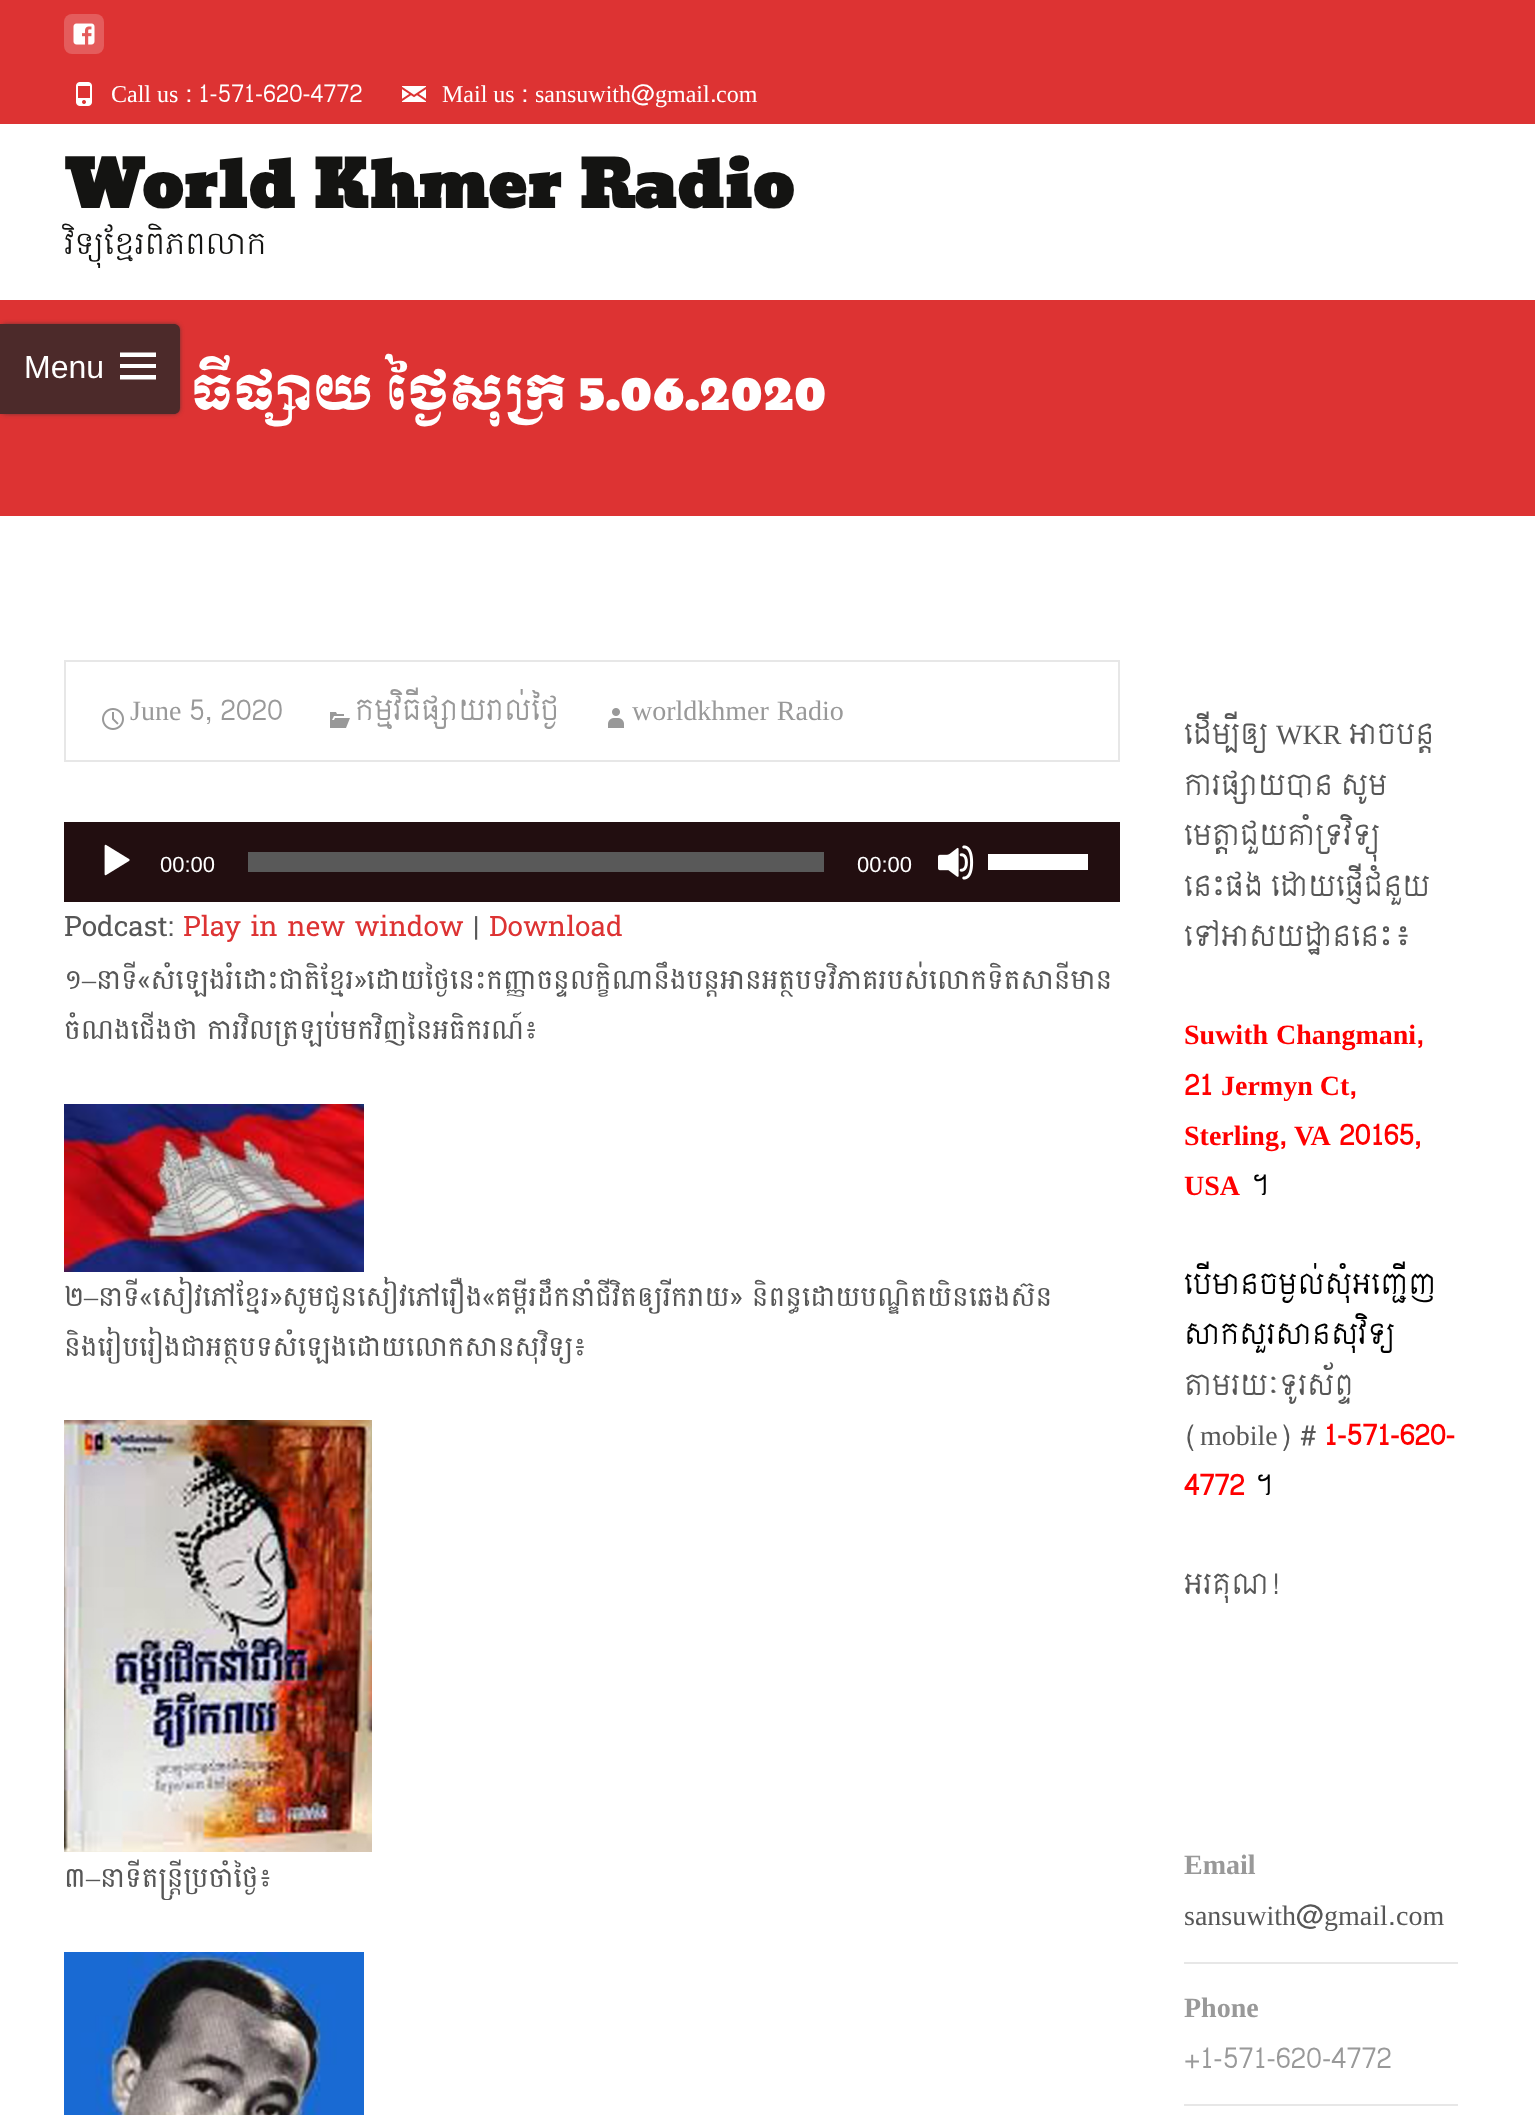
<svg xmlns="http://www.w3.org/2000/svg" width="1535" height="2115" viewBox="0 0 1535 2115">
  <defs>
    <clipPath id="clip1"><path d="M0 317H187V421H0ZM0 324H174C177.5 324 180 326.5 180 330V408C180 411.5 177.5 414 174 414H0Z" clip-rule="evenodd"/></clipPath>
  </defs>
  <rect width="100%" height="100%" fill="rgb(255,255,255)"/>
  <rect x="0" y="0" width="1535" height="124" fill="rgb(221,51,51)"/>
  <rect x="64" y="14" width="40" height="40" rx="8" fill="rgb(228,92,92)"/>
  <image x="73" y="23" width="22" height="22" href="pic1.png"/>
  <image x="76" y="82" width="16" height="24" href="pic2.png"/>
  <text x="111" y="102" font-family="Liberation Serif" font-size="24" fill="rgb(255,255,255)">Call us</text>
  <text x="185" y="102" font-family="Chenla" font-size="24" fill="rgb(255,255,255)">: 1-571-620-4772</text>
  <image x="402" y="86" width="24" height="16" href="pic3.png"/>
  <text x="442" y="102" font-family="Liberation Serif" font-size="24" fill="rgb(255,255,255)">Mail us</text>
  <text x="521" y="102" font-family="Chenla" font-size="24" fill="rgb(255,255,255)">:</text>
  <text x="535" y="102" font-family="Liberation Serif" font-size="24" fill="rgb(255,255,255)">sansuwith</text>
  <text x="631" y="102" font-family="Chenla" font-size="24" fill="rgb(255,255,255)">@</text>
  <text x="655" y="102" font-family="Liberation Serif" font-size="24" fill="rgb(255,255,255)">gmail</text>
  <text x="710" y="102" font-family="Chenla" font-size="24" fill="rgb(255,255,255)">.</text>
  <text x="716" y="102" font-family="Liberation Serif" font-size="24" fill="rgb(255,255,255)">com</text>
  <text x="64" y="208" font-family="Moul" font-size="64" font-weight="bold" fill="rgb(20,20,18)">World Khmer Radio</text>
  <text x="64" y="254" font-family="Hanuman" font-size="32" font-weight="300" fill="rgb(20,20,18)">វិទ្យុខ្មែរពិភពលោក</text>
  <rect x="0" y="300" width="1535" height="216" fill="rgb(221,51,51)"/>
  <g clip-path="url(#clip1)">
    <rect x="0" y="324" width="180" height="90" rx="6" fill="rgba(50,50,50,0.64)" filter="blur(2px)"/>
  </g>
  <text x="191" y="410" font-family="Moul" font-size="48" fill="rgb(255,255,255)">ធីផ្សាយ ថ្ងៃសុក្រ 5.06.2020</text>
  <path d="M0 324H174C177.5 324 180 326.5 180 330V408C180 411.5 177.5 414 174 414H0Z" fill="rgba(40,40,40,0.8)"/>
  <text x="24" y="378" font-family="Liberation Sans" font-size="32" fill="rgb(255,255,255)">Menu</text>
  <path d="M120 379.5V375H156V379.5ZM120 368V364H156V368ZM120 357V352.5H156V357Z" fill="rgb(255,255,255)"/>
  <rect x="65" y="661" width="1054" height="100" fill="none" stroke="rgb(231,231,231)" stroke-width="2"/>
  <image x="102" y="708" width="22" height="22" href="pic4.png"/>
  <text x="130" y="720" font-family="Liberation Serif" font-size="28" fill="rgb(153,153,153)">June</text>
  <text x="189" y="720" font-family="Chenla" font-size="28" fill="rgb(153,153,153)">5, 2020</text>
  <image x="330" y="712" width="20" height="16" href="pic5.png"/>
  <text x="355" y="720" font-family="Chenla" font-size="28" fill="rgb(153,153,153)">កម្មវិធីផ្សាយរាល់ថ្ងៃ</text>
  <image x="608" y="708" width="16" height="20" href="pic6.png"/>
  <text x="632" y="720" word-spacing="1" font-family="Liberation Serif" font-size="28" fill="rgb(153,153,153)">worldkhmer Radio</text>
  <rect x="64" y="822" width="1056" height="80" fill="rgb(34,14,16)"/>
  <image x="104" y="844" width="26" height="32" href="pic7.png"/>
  <text x="160" y="872" font-family="Liberation Sans" font-size="22" fill="rgb(255,255,255)">00:00</text>
  <rect x="248" y="852" width="576" height="20" fill="rgb(89,89,89)"/>
  <text x="857" y="872" font-family="Liberation Sans" font-size="22" fill="rgb(255,255,255)">00:00</text>
  <image x="938" y="845" width="36" height="35" href="pic8.png"/>
  <rect x="988" y="854" width="100" height="16" fill="rgb(255,255,255)"/>
  <text x="64" y="936" font-family="Battambang" font-size="28" fill="rgb(87,87,87)">Podcast:</text>
  <text x="183" y="936" font-family="Battambang" font-size="28" fill="rgb(221,51,51)">Play in new window</text>
  <text x="473" y="936" font-family="Battambang" font-size="28" fill="rgb(87,87,87)">|</text>
  <text x="489" y="936" font-family="Battambang" font-size="28" fill="rgb(221,51,51)">Download</text>
  <text x="64" y="989" font-family="Battambang" font-size="28" fill="rgb(87,87,87)">១</text>
  <text x="82" y="989" font-family="Liberation Serif" font-size="28" fill="rgb(87,87,87)">–</text>
  <g font-family="Battambang" font-size="28" fill="rgb(87,87,87)">
    <text x="96" y="989">នាទី«សំឡេងរំដោះជាតិខ្មែរ»ដោយថ្ងៃនេះកញ្ញាចន្ទលក្ខិណានឹងបន្តអានអត្ថបទវិភាគរបស់លោកទិតសានីមាន</text>
    <text x="64" y="1039">ចំណងជើងថា ការវិលត្រឡប់មកវិញនៃអធិករណ៍៖</text>
  </g>
  <image x="64" y="1104" width="300" height="168" href="pic9.png"/>
  <text x="64" y="1306" font-family="Battambang" font-size="28" fill="rgb(87,87,87)">២</text>
  <text x="84" y="1306" font-family="Liberation Serif" font-size="28" fill="rgb(87,87,87)">–</text>
  <g font-family="Battambang" font-size="28" fill="rgb(87,87,87)">
    <text x="98" y="1306">នាទី«សៀវភៅខ្មែរ»សូមជូនសៀវភៅរឿង«គម្ពីរដឹកនាំជីវិតឲ្យរីករាយ» និពន្ធដោយបណ្ឌិតយិនឆេងស៊ន</text>
    <text x="64" y="1356">និងរៀបរៀងជាអត្ថបទសំឡេងដោយលោកសានសុវិទ្យ៖</text>
  </g>
  <image x="64" y="1420" width="308" height="432" href="pic10.png"/>
  <text x="64" y="1887" font-family="Battambang" font-size="28" fill="rgb(87,87,87)">៣</text>
  <text x="86" y="1887" font-family="Liberation Serif" font-size="28" fill="rgb(87,87,87)">–</text>
  <text x="100" y="1887" font-family="Battambang" font-size="28" fill="rgb(87,87,87)">នាទីតន្ត្រីប្រចាំថ្ងៃ៖</text>
  <image x="64" y="1952" width="300" height="163" href="pic11.png"/>
  <text x="1184" y="744" font-family="Chenla" font-size="28" fill="rgb(87,87,87)">ដើម្បីឲ្យ</text>
  <text x="1276" y="744" font-family="Liberation Serif" font-size="28" fill="rgb(87,87,87)">WKR</text>
  <g font-family="Chenla" font-size="28" fill="rgb(87,87,87)">
    <text x="1349" y="744">អាចបន្ត</text>
    <text>
      <tspan x="1184" y="795">ការផ្សាយបាន សូម</tspan>
      <tspan x="1184" y="845">មេត្តាជួយគាំទ្រវិទ្យុ</tspan>
      <tspan x="1184" y="896">នេះផង ដោយផ្ញើជំនួយ</tspan>
      <tspan x="1184" y="946">ទៅអាសយដ្ឋាននេះ៖</tspan>
    </text>
  </g>
  <text x="1184" y="1044" word-spacing="1" font-family="Liberation Serif" font-size="28" font-weight="bold" fill="rgb(255,0,0)">Suwith Changmani</text>
  <g font-family="Chenla" font-size="28" font-weight="bold" fill="rgb(255,0,0)">
    <text x="1416" y="1044">,</text>
    <text x="1184" y="1095">21</text>
  </g>
  <text x="1221" y="1095" font-family="Liberation Serif" font-size="28" font-weight="bold" fill="rgb(255,0,0)">Jermyn Ct</text>
  <text x="1349" y="1095" font-family="Chenla" font-size="28" font-weight="bold" fill="rgb(255,0,0)">,</text>
  <text x="1184" y="1145" font-family="Liberation Serif" font-size="28" font-weight="bold" fill="rgb(255,0,0)">Sterling</text>
  <text x="1279" y="1145" font-family="Chenla" font-size="28" font-weight="bold" fill="rgb(255,0,0)">,</text>
  <text x="1294" y="1145" font-family="Liberation Serif" font-size="28" font-weight="bold" fill="rgb(255,0,0)">VA</text>
  <text x="1339" y="1145" font-family="Chenla" font-size="28" font-weight="bold" fill="rgb(255,0,0)">20165,</text>
  <text x="1184" y="1195" font-family="Liberation Serif" font-size="28" font-weight="bold" fill="rgb(255,0,0)">USA</text>
  <g font-family="Chenla" font-size="28" fill="rgb(0,0,0)">
    <text x="1248" y="1195">។</text>
    <text>
      <tspan x="1184" y="1294">បើមានចម្ងល់សុំអញ្ជើញ</tspan>
      <tspan x="1184" y="1344">សាកសួរសានសុវិទ្យ</tspan>
    </text>
  </g>
  <g font-family="Chenla" font-size="28" fill="rgb(87,87,87)">
    <text>
      <tspan x="1184" y="1395">តាមរយៈទូរស័ព្ទ</tspan>
      <tspan x="1184" y="1445">(</tspan>
    </text>
  </g>
  <text x="1200" y="1445" font-family="Liberation Serif" font-size="28" fill="rgb(87,87,87)">mobile</text>
  <text x="1277" y="1445" font-family="Chenla" font-size="28" fill="rgb(87,87,87)">) #</text>
  <g font-family="Chenla" font-size="28" font-weight="bold" fill="rgb(255,0,0)">
    <text x="1324" y="1445">1-571-620-</text>
    <text x="1184" y="1495">4772</text>
  </g>
  <text x="1252" y="1495" font-family="Chenla" font-size="28" fill="rgb(0,0,0)">។</text>
  <text x="1184" y="1594" font-family="Chenla" font-size="28" fill="rgb(87,87,87)">អរគុណ!</text>
  <rect x="1184" y="1962" width="274" height="2" fill="rgb(231,231,231)"/>
  <text x="1184" y="1874" font-family="Liberation Serif" font-size="28" font-weight="bold" fill="rgb(153,153,153)">Email</text>
  <text x="1184" y="1925" font-family="Liberation Serif" font-size="28" fill="rgb(87,87,87)">sansuwith</text>
  <text x="1296" y="1925" font-family="Chenla" font-size="28" fill="rgb(87,87,87)">@</text>
  <text x="1324" y="1925" font-family="Liberation Serif" font-size="28" fill="rgb(87,87,87)">gmail</text>
  <text x="1388" y="1925" font-family="Chenla" font-size="28" fill="rgb(87,87,87)">.</text>
  <text x="1396" y="1925" font-family="Liberation Serif" font-size="28" fill="rgb(87,87,87)">com</text>
  <rect x="1184" y="2104" width="274" height="2" fill="rgb(231,231,231)"/>
  <text x="1184" y="2017" font-family="Liberation Serif" font-size="28" font-weight="bold" fill="rgb(153,153,153)">Phone</text>
  <text x="1184" y="2068" font-family="Chenla" font-size="28" fill="rgb(153,153,153)">+1-571-620-4772</text>
</svg>
